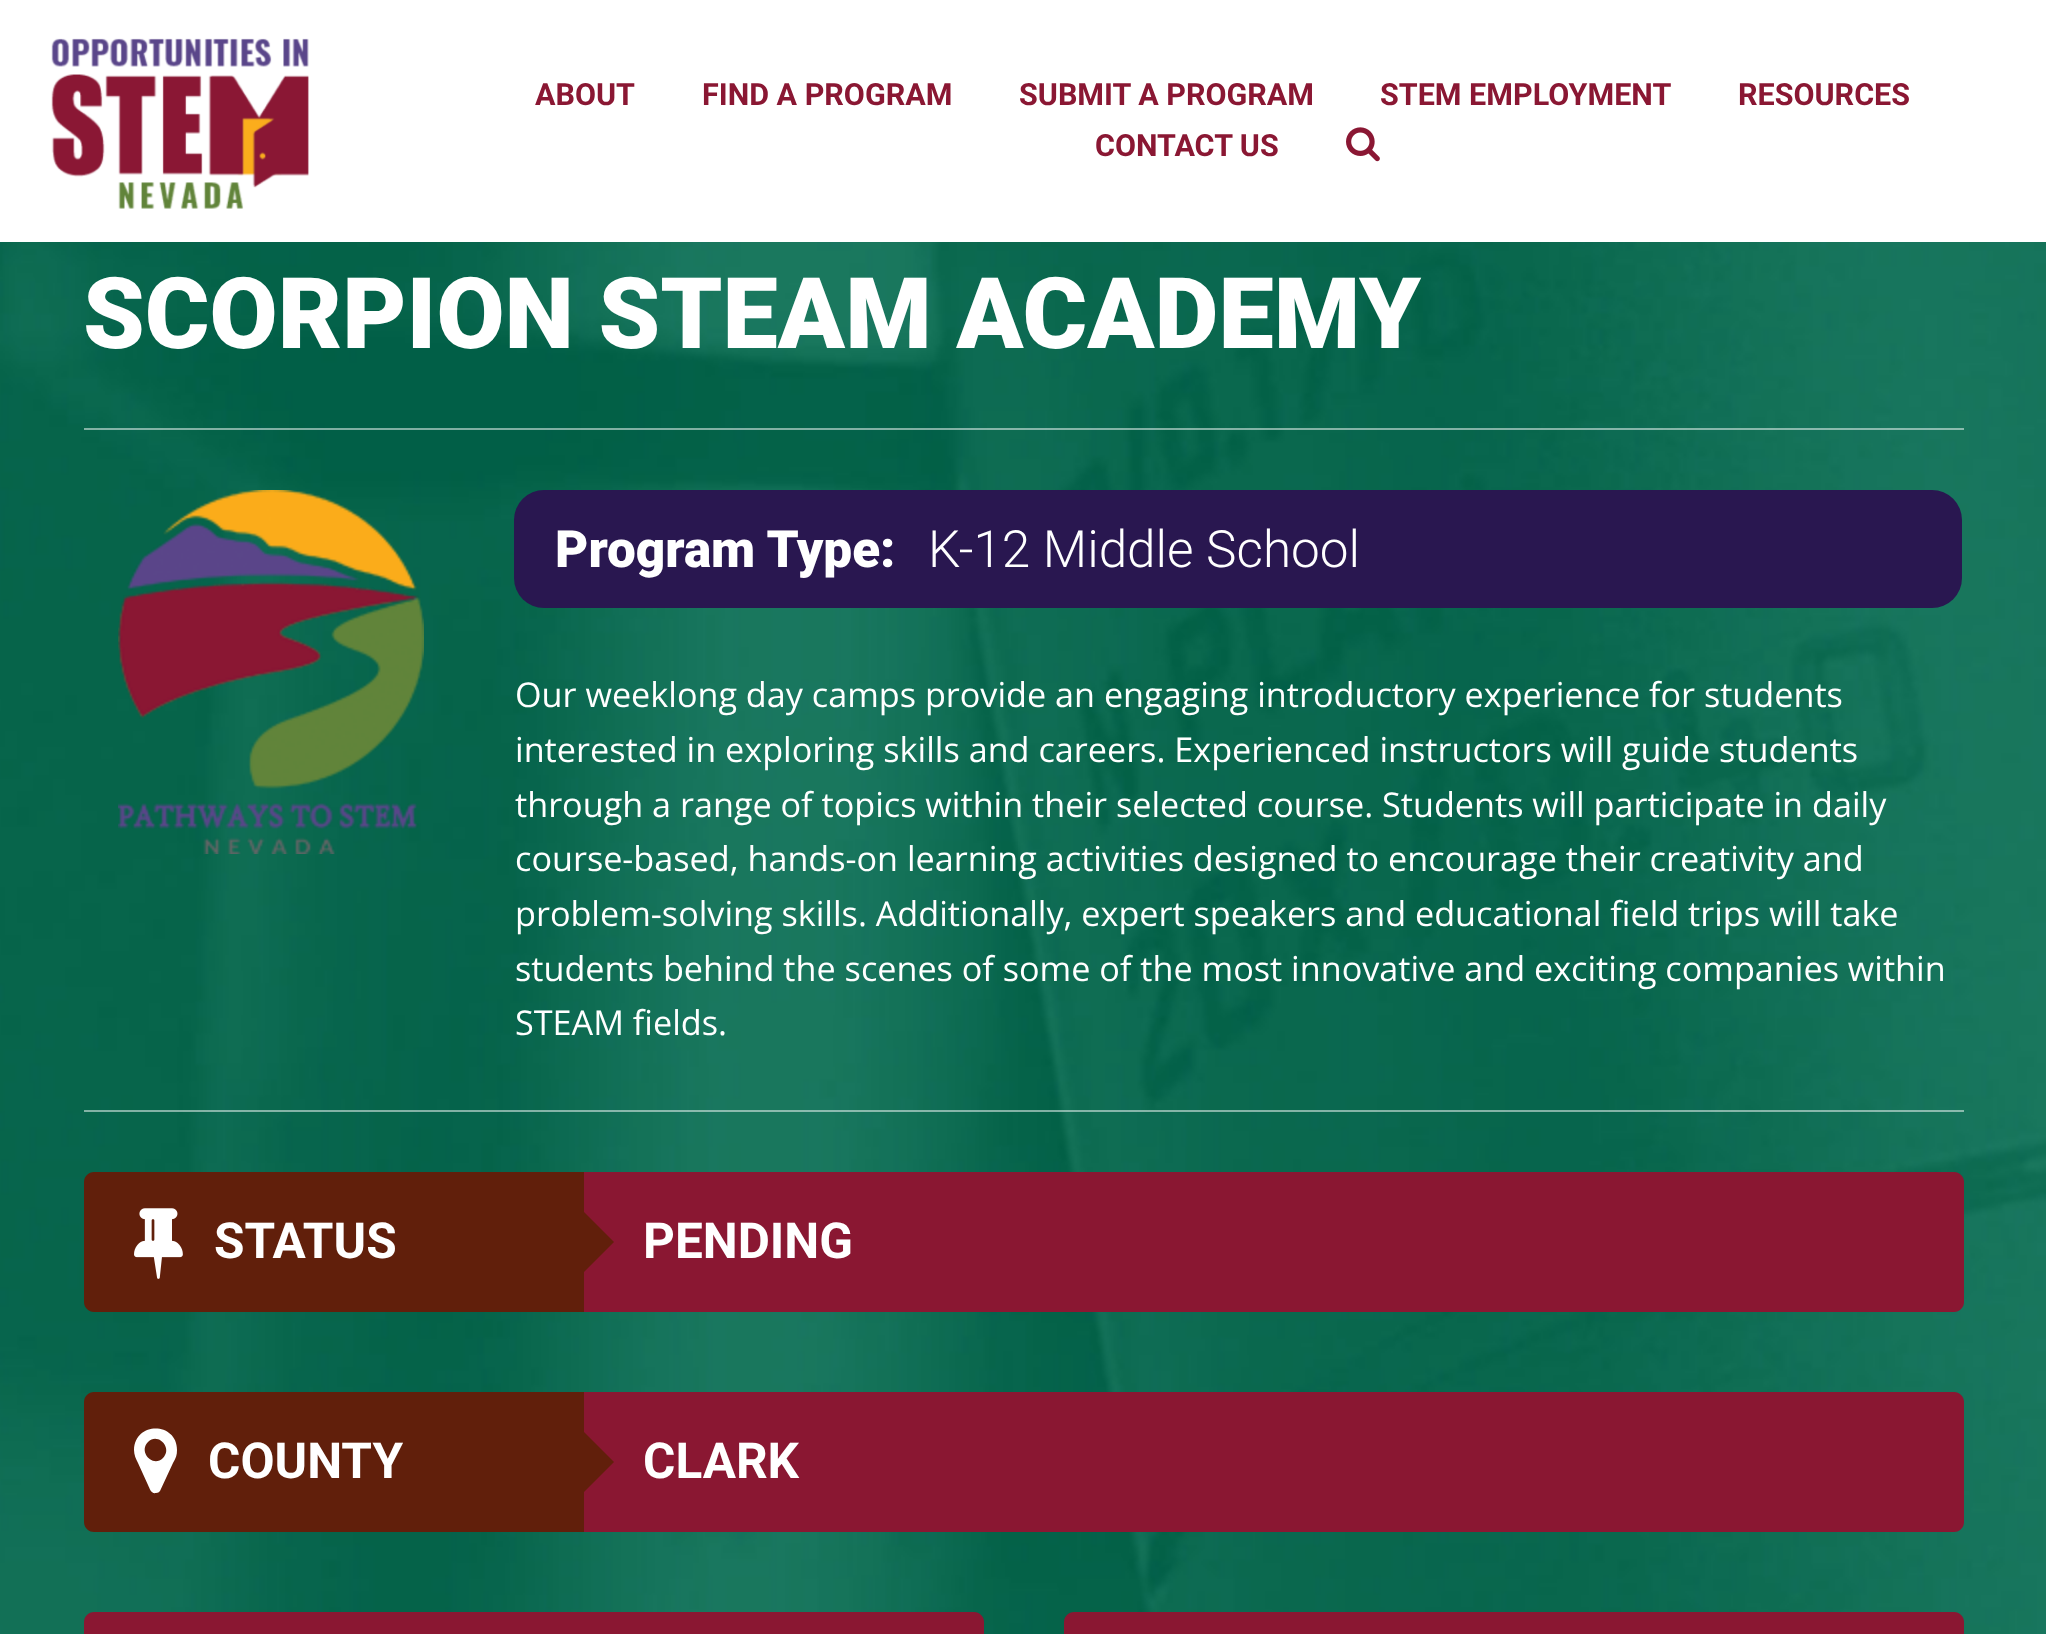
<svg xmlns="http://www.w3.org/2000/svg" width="2046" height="1634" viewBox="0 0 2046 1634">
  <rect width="100%" height="100%" fill="rgb(255,255,255)"/>
  <image x="51" y="38" width="258" height="171" href="pic1.png"/>
  <g font-family="Roboto" font-size="30.5" font-weight="bold" fill="rgb(138,23,51)">
    <text x="535" y="105">ABOUT</text>
    <text x="702" y="105">FIND A PROGRAM</text>
    <text x="1019" y="105">SUBMIT A PROGRAM</text>
    <text x="1380" y="105">STEM EMPLOYMENT</text>
    <text x="1738" y="105">RESOURCES</text>
    <text x="1095" y="156">CONTACT US</text>
  </g>
  <image x="1346" y="127" width="34" height="35" href="pic2.png"/>
  <image x="0" y="242" width="2046" height="1392" href="pic3.png"/>
  <rect x="84" y="428" width="1880" height="2" fill="rgba(255,255,255,0.5)"/>
  <text x="83" y="348" font-family="Roboto" font-size="98.75" font-weight="900" fill="rgb(255,255,255)">SCORPION STEAM ACADEMY</text>
  <rect x="84" y="1110" width="1880" height="2" fill="rgba(255,255,255,0.5)"/>
  <image x="118" y="490" width="306" height="364" href="pic4.png"/>
  <rect x="514" y="490" width="1448" height="118" rx="30" fill="rgb(41,23,80)"/>
  <text x="555" y="567" font-family="Roboto" font-size="51.25" font-weight="900" fill="rgb(255,255,255)">Program Type:</text>
  <text x="928" y="567" font-family="Roboto" font-size="51.25" font-weight="300" fill="rgb(255,255,255)">K-12 Middle School</text>
  <g font-family="Open Sans" font-size="34.2" fill="rgb(255,255,255)">
    <text>
      <tspan x="515" y="707">Our weeklong day camps provide an engaging introductory experience for students</tspan>
      <tspan x="515" y="762">interested in exploring skills and careers. Experienced instructors will guide students</tspan>
      <tspan x="515" y="817">through a range of topics within their selected course. Students will participate in daily</tspan>
      <tspan x="515" y="871">course-based, hands-on learning activities designed to encourage their creativity and</tspan>
      <tspan x="515" y="926">problem-solving skills. Additionally, expert speakers and educational field trips will take</tspan>
      <tspan x="515" y="981">students behind the scenes of some of the most innovative and exciting companies within</tspan>
      <tspan x="515" y="1035">STEAM fields.</tspan>
    </text>
  </g>
  <path d="M94 1172H584V1312H94C88.5 1312 84 1307.5 84 1302V1182C84 1176.5 88.5 1172 94 1172Z" fill="rgb(97,31,11)"/>
  <image x="134" y="1208" width="49" height="71" href="pic5.png"/>
  <text x="214" y="1258" font-family="Roboto" font-size="49.5" font-weight="bold" fill="rgb(255,255,255)">STATUS</text>
  <path d="M584 1172H1954C1959.5 1172 1964 1176.5 1964 1182V1302C1964 1307.5 1959.5 1312 1954 1312H584Z" fill="rgb(138,23,50)"/>
  <path d="M584 1272V1212L614 1242Z" fill="rgb(97,31,11)"/>
  <text x="643" y="1258" font-family="Roboto" font-size="49.5" font-weight="bold" fill="rgb(255,255,255)">PENDING</text>
  <path d="M94 1392H584V1532H94C88.5 1532 84 1527.5 84 1522V1402C84 1396.5 88.5 1392 94 1392Z" fill="rgb(97,31,11)"/>
  <path d="M163 1458C173 1448 158 1432 148 1442C138 1452 153 1468 163 1458ZM177 1450C177 1455 176 1458 173 1463L160 1491C159 1492 158 1493 156 1493C151 1494 150 1489 148 1485L138 1463C136 1459 134 1455 134 1450C135 1421 177 1422 177 1450Z" fill="rgb(255,255,255)"/>
  <text x="208" y="1478" font-family="Roboto" font-size="49.5" font-weight="bold" fill="rgb(255,255,255)">COUNTY</text>
  <path d="M584 1392H1954C1959.5 1392 1964 1396.5 1964 1402V1522C1964 1527.5 1959.5 1532 1954 1532H584Z" fill="rgb(138,23,50)"/>
  <path d="M584 1492V1432L614 1462Z" fill="rgb(97,31,11)"/>
  <text x="643" y="1478" font-family="Roboto" font-size="49.5" font-weight="bold" fill="rgb(255,255,255)">CLARK</text>
  <path d="M94 1612H974C979.5 1612 984 1616.5 984 1622V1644H84V1622C84 1616.5 88.5 1612 94 1612Z" fill="rgb(138,23,50)"/>
  <path d="M1074 1612H1954C1959.5 1612 1964 1616.5 1964 1622V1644H1064V1622C1064 1616.5 1068.5 1612 1074 1612Z" fill="rgb(138,23,50)"/>
</svg>
